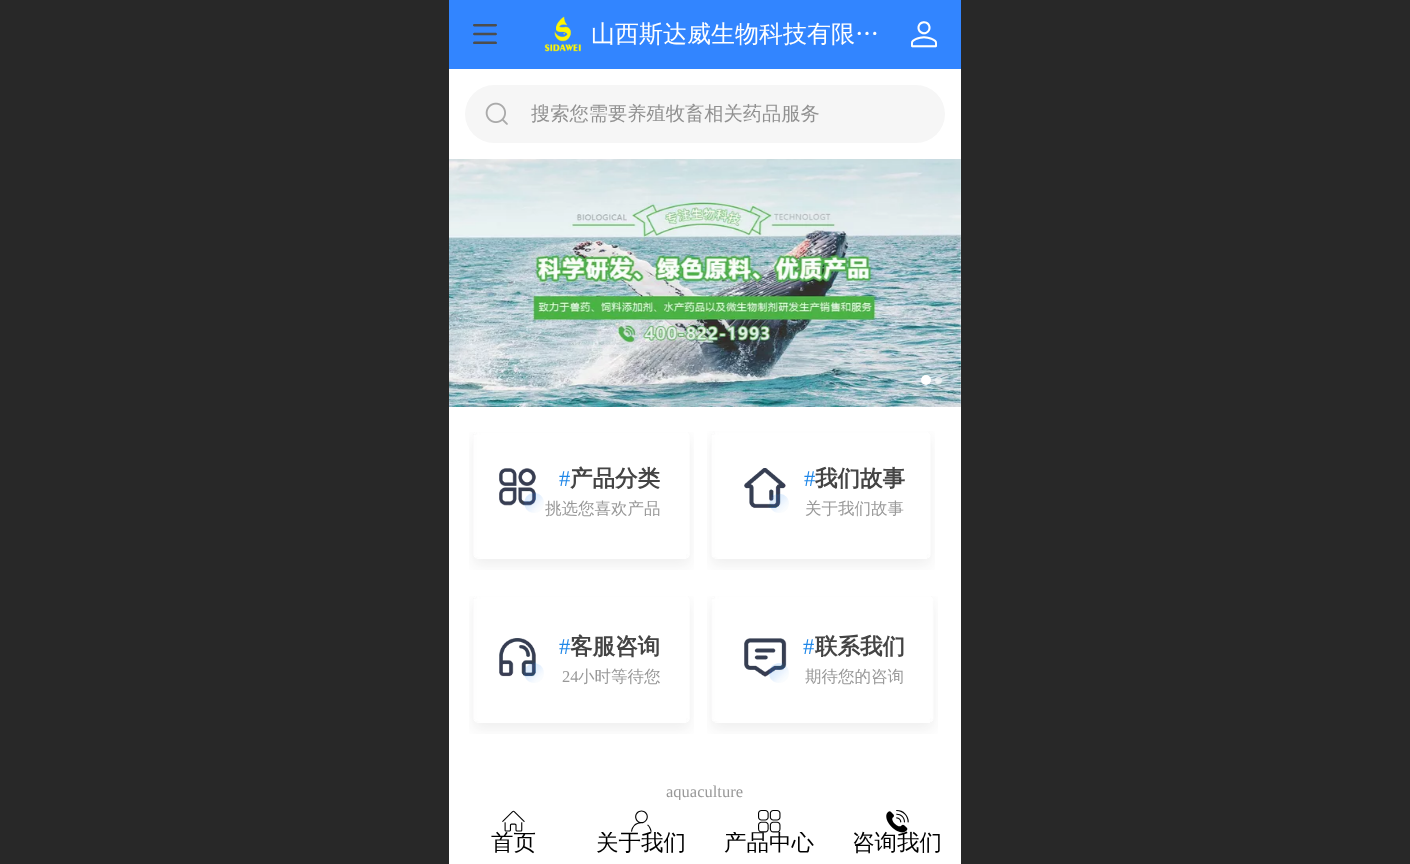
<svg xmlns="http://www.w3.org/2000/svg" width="1410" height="864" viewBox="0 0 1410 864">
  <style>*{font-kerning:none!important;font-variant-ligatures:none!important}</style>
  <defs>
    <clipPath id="clip1"><rect x="577" y="832" width="128" height="22"/></clipPath>
    <clipPath id="clip2"><rect x="705" y="832" width="128" height="22"/></clipPath>
  </defs>
  <rect width="100%" height="100%" fill="rgb(255,255,255)"/>
  <rect x="0" y="0" width="449" height="864" fill="rgb(40,40,40)"/>
  <rect x="449" y="0" width="512" height="69" fill="rgb(50,133,255)"/>
  <text x="473" y="44" font-family="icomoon" font-size="24" fill="rgb(77,77,77)">򰌲</text>
  <image x="544" y="16" width="37" height="36" href="pic1.png"/>
  <text x="591" y="42" font-family="WenQuanYi Zen Hei" font-size="24" font-weight="500" fill="rgb(255,255,255)">山西斯达威生物科技有限…</text>
  <text x="911" y="45" font-family="icomoon" font-size="26" fill="rgb(255,255,255)">򰊈</text>
  <rect x="465" y="85" width="480" height="58" rx="29" fill="rgb(246,246,246)"/>
  <image x="485" y="102" width="23" height="23" href="pic2.png"/>
  <text x="531" y="120" font-family="WenQuanYi Zen Hei" font-size="19.25" font-weight="500" fill="rgb(145,145,145)">搜索您需要养殖牧畜相关药品服务</text>
  <image x="449" y="159" width="512" height="248" href="pic3.png"/>
  <circle cx="926" cy="380" r="5" fill="rgb(255,255,255)"/>
  <circle cx="938.5" cy="380.5" r="3.5" fill="rgba(255,255,255,0.6)"/>
  <image x="469" y="432" width="225" height="138" href="pic4.png"/>
  <image x="707" y="431" width="228" height="139" href="pic5.png"/>
  <image x="499" y="468" width="45" height="45" href="pic6.png"/>
  <text x="559" y="486" font-family="Liberation Serif" font-size="22.5" fill="rgb(31,135,232)">#</text>
  <text x="570" y="486" font-family="WenQuanYi Zen Hei" font-size="22.5" font-weight="bold" fill="rgb(68,68,68)">产品分类</text>
  <text x="545" y="514" font-family="WenQuanYi Zen Hei" font-size="16.5" font-weight="500" fill="rgb(153,153,153)">挑选您喜欢产品</text>
  <image x="744" y="468" width="45" height="45" href="pic7.png"/>
  <text x="804" y="486" font-family="Liberation Serif" font-size="22.5" fill="rgb(31,135,232)">#</text>
  <text x="815" y="486" font-family="WenQuanYi Zen Hei" font-size="22.5" font-weight="bold" fill="rgb(68,68,68)">我们故事</text>
  <text x="805" y="514" font-family="WenQuanYi Zen Hei" font-size="16.5" font-weight="500" fill="rgb(153,153,153)">关于我们故事</text>
  <image x="469" y="596" width="225" height="138" href="pic4.png"/>
  <image x="707" y="596" width="231" height="138" href="pic8.png"/>
  <image x="499" y="638" width="45" height="45" href="pic9.png"/>
  <text x="559" y="654" font-family="Liberation Serif" font-size="22.5" fill="rgb(31,135,232)">#</text>
  <text x="570" y="654" font-family="WenQuanYi Zen Hei" font-size="22.5" font-weight="bold" fill="rgb(68,68,68)">客服咨询</text>
  <text x="562" y="682" font-family="Liberation Serif" font-size="16.5" fill="rgb(153,153,153)">24</text>
  <text x="578" y="682" font-family="WenQuanYi Zen Hei" font-size="16.5" font-weight="500" fill="rgb(153,153,153)">小时等待您</text>
  <image x="744" y="638" width="45" height="45" href="pic10.png"/>
  <text x="803" y="654" font-family="Liberation Serif" font-size="22.5" fill="rgb(31,135,232)">#</text>
  <text x="815" y="654" font-family="WenQuanYi Zen Hei" font-size="22.5" font-weight="bold" fill="rgb(68,68,68)">联系我们</text>
  <text x="805" y="682" font-family="WenQuanYi Zen Hei" font-size="16.5" font-weight="500" fill="rgb(153,153,153)">期待您的咨询</text>
  <image x="449" y="751" width="512" height="49" href="pic11.png"/>
  <text x="666" y="797" font-family="Liberation Serif" font-size="16.5" fill="rgb(153,153,153)">aquaculture</text>
  <rect x="678" y="800" width="4" height="1" fill="rgb(255,255,255)"/>
  <text x="502" y="831" font-family="icomoon" font-size="22.5" fill="rgb(0,0,0)">򠡀</text>
  <text x="491" y="850" font-family="WenQuanYi Zen Hei" font-size="22.5" font-weight="500" fill="rgb(0,0,0)">首页</text>
  <text x="630" y="831" font-family="icomoon" font-size="22.5" fill="rgb(0,0,0)">򠌹</text>
  <g clip-path="url(#clip1)">
    <text x="596" y="850" font-family="WenQuanYi Zen Hei" font-size="22.5" font-weight="500" fill="rgb(0,0,0)">关于我们</text>
  </g>
  <text x="758" y="831" font-family="icomoon" font-size="22.5" fill="rgb(0,0,0)">򠡆</text>
  <g clip-path="url(#clip2)">
    <text x="724" y="850" font-family="WenQuanYi Zen Hei" font-size="22.5" font-weight="500" fill="rgb(0,0,0)">产品中心</text>
  </g>
  <text x="886" y="831" font-family="icomoon" font-size="22.5" fill="rgb(0,0,0)">򠤐</text>
  <text x="852" y="850" font-family="WenQuanYi Zen Hei" font-size="22.5" font-weight="500" fill="rgb(0,0,0)">咨询我们</text>
  <rect x="961" y="0" width="449" height="864" fill="rgb(40,40,40)"/>
</svg>
